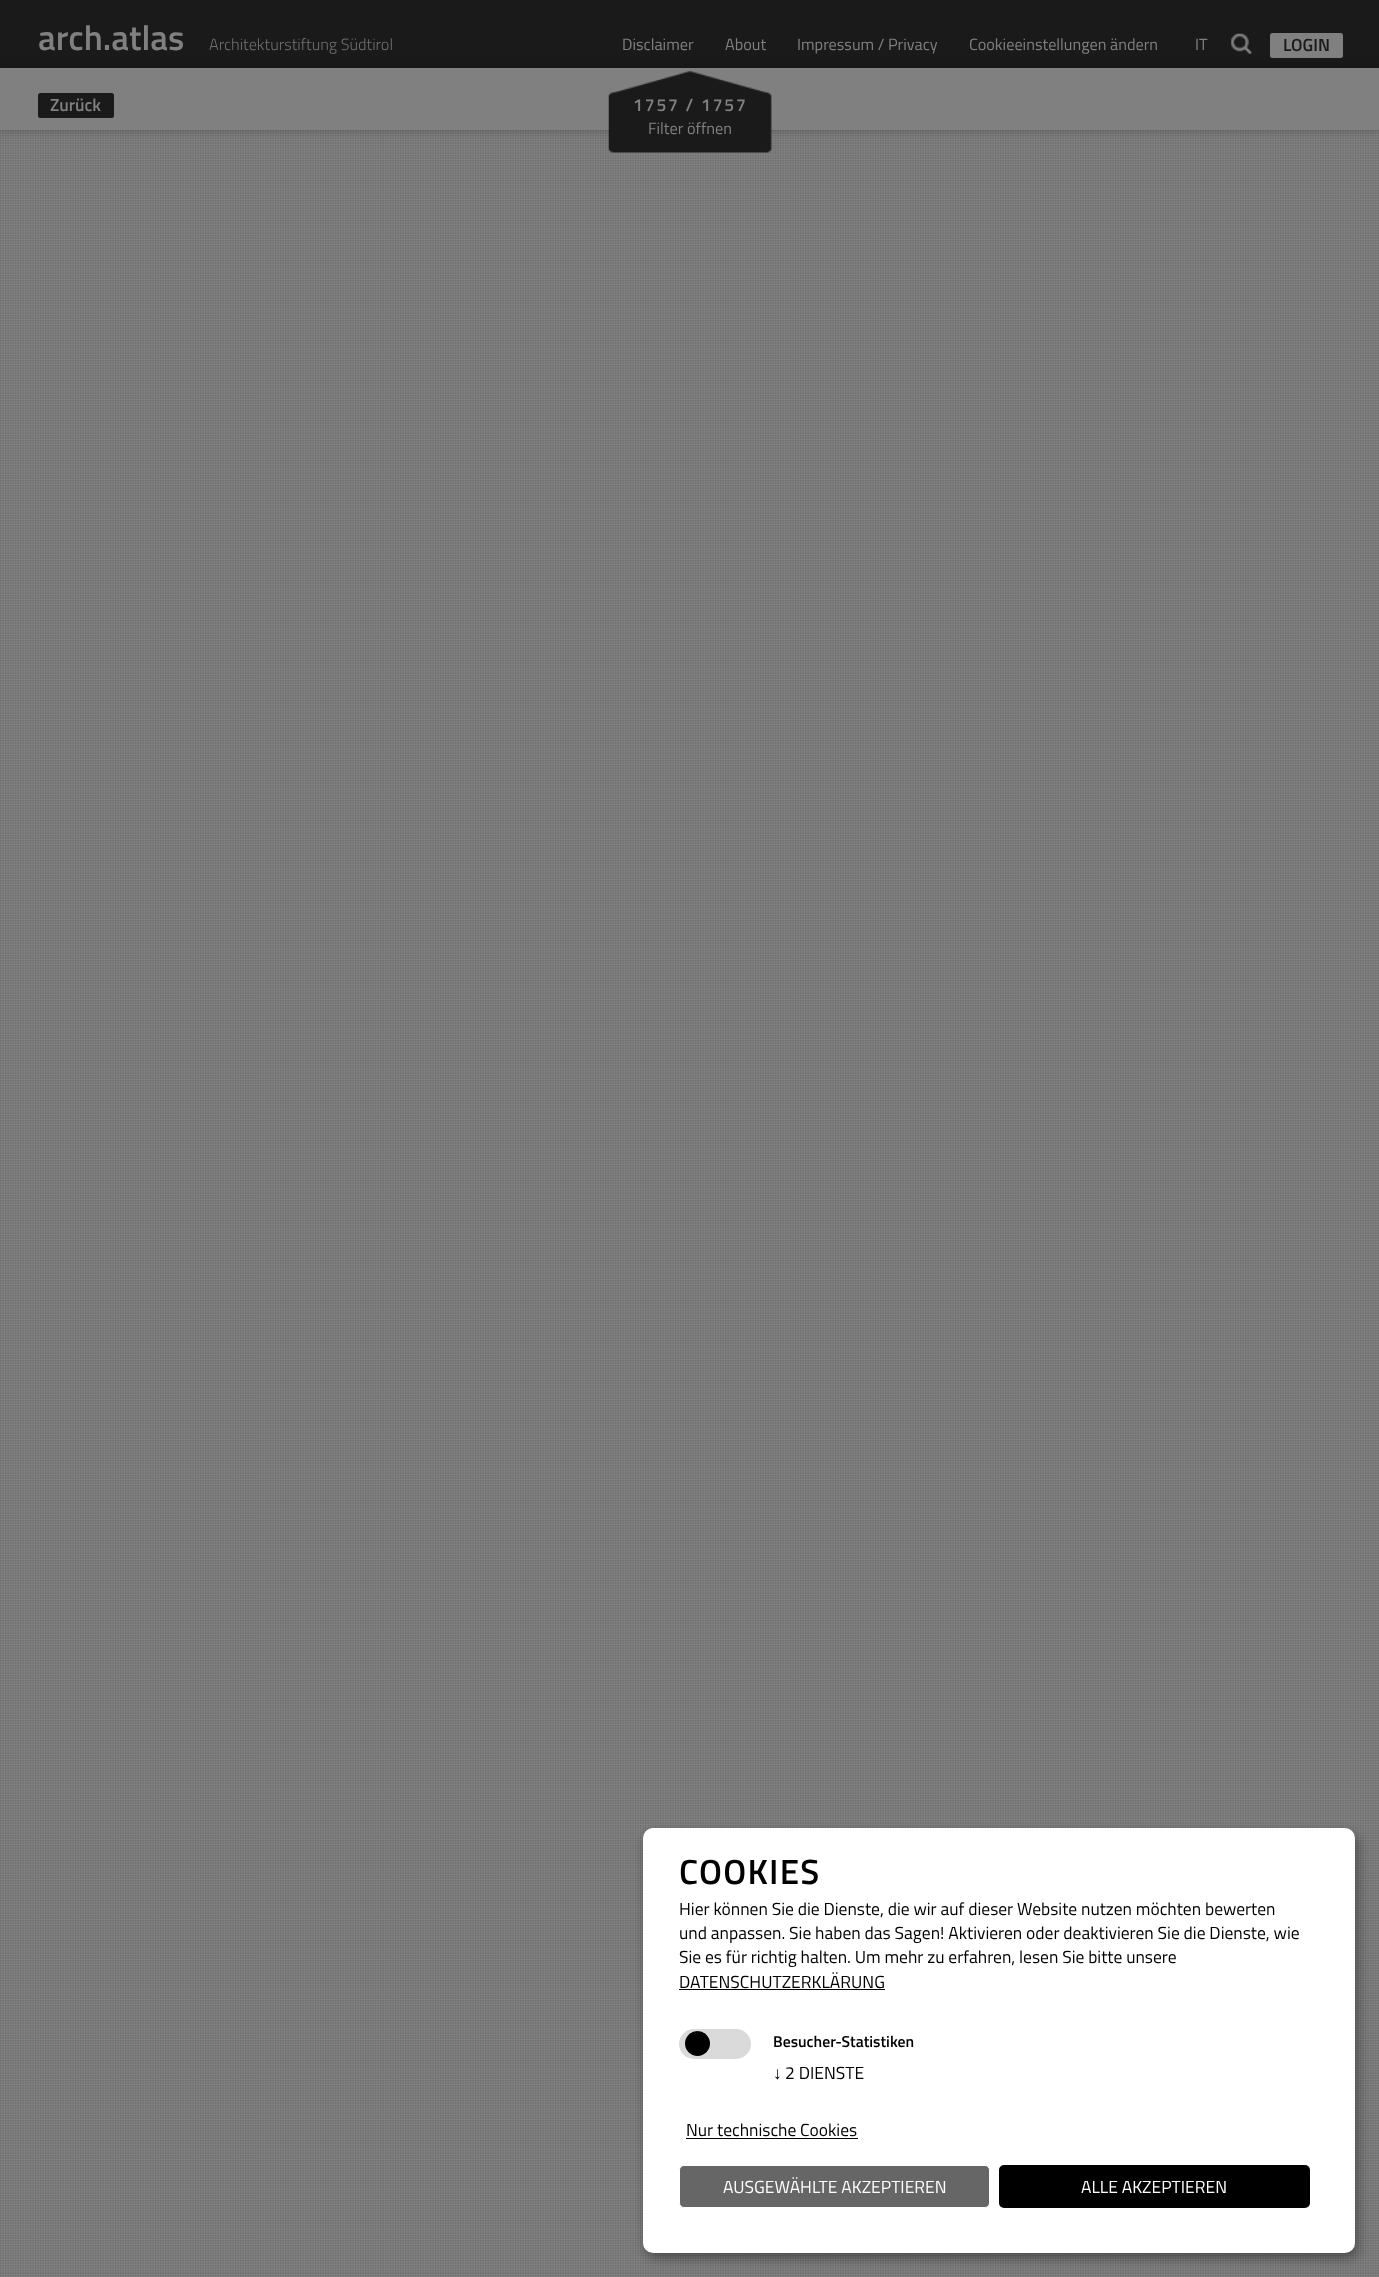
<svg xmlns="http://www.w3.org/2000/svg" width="1379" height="2277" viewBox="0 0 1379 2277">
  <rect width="100%" height="100%" fill="rgb(128,128,128)"/>
  <rect x="0" y="0" width="1379" height="68" fill="rgb(26,26,26)"/>
  <text x="38" y="50" font-family="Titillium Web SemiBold" font-size="35" font-weight="600" fill="rgb(128,128,128)">arch.atlas</text>
  <text x="209" y="50" font-family="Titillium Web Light" font-size="16.25" font-weight="300" fill="rgb(111,111,111)">Architekturstiftung Südtirol</text>
  <image x="1231" y="33" width="21" height="21" href="pic1.png"/>
  <g font-family="Titillium Web" font-size="16.25" fill="rgb(128,128,128)">
    <text x="622" y="50">Disclaimer</text>
    <text x="725" y="50">About</text>
    <text x="797" y="50">Impressum / Privacy</text>
    <text x="969" y="50">Cookieeinstellungen ändern</text>
    <text x="1195" y="50">IT</text>
  </g>
  <rect x="1270" y="33" width="73" height="25" rx="2.5" fill="rgb(128,128,128)"/>
  <text x="1283" y="51" font-family="Titillium Web SemiBold" font-size="17.5" font-weight="600" fill="rgb(26,26,26)">LOGIN</text>
  <image x="0" y="130" width="1379" height="2147" href="pic3.png"/>
  <rect x="-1" y="66" width="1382" height="65" fill="rgba(0,0,0,0.2)" filter="blur(4px)"/>
  <rect x="0" y="68" width="1379" height="62" fill="rgb(128,128,128)"/>
  <rect x="38" y="93" width="76" height="25" rx="2.5" fill="rgb(26,26,26)"/>
  <text x="50" y="111" font-family="Titillium Web SemiBold" font-size="17.5" font-weight="600" fill="rgb(128,128,128)">Zurück</text>
  <image x="608" y="71" width="164" height="82" href="pic2.png"/>
  <text x="633" y="111" font-family="Titillium Web SemiBold" font-size="17.5" font-weight="600" letter-spacing="1.9" fill="rgb(128,128,128)">1757 / 1757</text>
  <text x="648" y="134" font-family="Titillium Web" font-size="16.25" fill="rgb(128,128,128)">Filter öffnen</text>
  <rect x="649" y="1834" width="712" height="425" rx="10" fill="rgba(0,0,0,0.19)" filter="blur(6px)"/>
  <rect x="643" y="1833" width="712" height="425" rx="10" fill="rgba(0,0,0,0.2)" filter="blur(4px)"/>
  <rect x="643" y="1828" width="712" height="425" rx="10" fill="rgb(255,255,255)"/>
  <text x="679" y="1884" font-family="Titillium Web SemiBold" font-size="35" font-weight="600" letter-spacing="1.25" fill="rgb(0,0,0)">COOKIES</text>
  <g font-family="Titillium Web" font-size="17.5" fill="rgb(0,0,0)">
    <text>
      <tspan x="679" y="1915">Hier können Sie die Dienste, die wir auf dieser Website nutzen möchten bewerten</tspan>
      <tspan x="679" y="1939">und anpassen. Sie haben das Sagen! Aktivieren oder deaktivieren Sie die Dienste, wie</tspan>
      <tspan x="679" y="1963">Sie es für richtig halten. Um mehr zu erfahren, lesen Sie bitte unsere</tspan>
      <tspan x="679" y="1988">DATENSCHUTZERKLÄRUNG</tspan>
    </text>
  </g>
  <rect x="679" y="1989" width="206" height="1" fill="rgb(0,0,0)"/>
  <rect x="679" y="2029" width="72" height="30" rx="15" fill="rgb(218,218,218)"/>
  <circle cx="697.5" cy="2043.5" r="12.5" fill="rgb(0,0,0)"/>
  <text x="773" y="2047" font-family="Titillium Web SemiBold" font-size="15.75" font-weight="600" fill="rgb(0,0,0)">Besucher-Statistiken</text>
  <text x="773" y="2079" font-family="Liberation Sans" font-size="17.5" fill="rgb(0,0,0)">↓</text>
  <g font-family="Titillium Web" font-size="17.5" fill="rgb(0,0,0)">
    <text x="785" y="2079">2 DIENSTE</text>
    <text x="686" y="2136">Nur technische Cookies</text>
  </g>
  <rect x="686" y="2138" width="172" height="1" fill="rgb(0,0,0)"/>
  <rect x="679.5" y="2165.5" width="310" height="42" rx="4.5" fill="rgb(102,102,102)" stroke="rgb(255,255,255)"/>
  <text x="723" y="2193" font-family="Titillium Web" font-size="17.5" fill="rgb(255,255,255)">AUSGEWÄHLTE AKZEPTIEREN</text>
  <rect x="999" y="2165" width="311" height="43" rx="5" fill="rgb(0,0,0)"/>
  <text x="1081" y="2193" font-family="Titillium Web" font-size="17.5" fill="rgb(255,255,255)">ALLE AKZEPTIEREN</text>
</svg>
